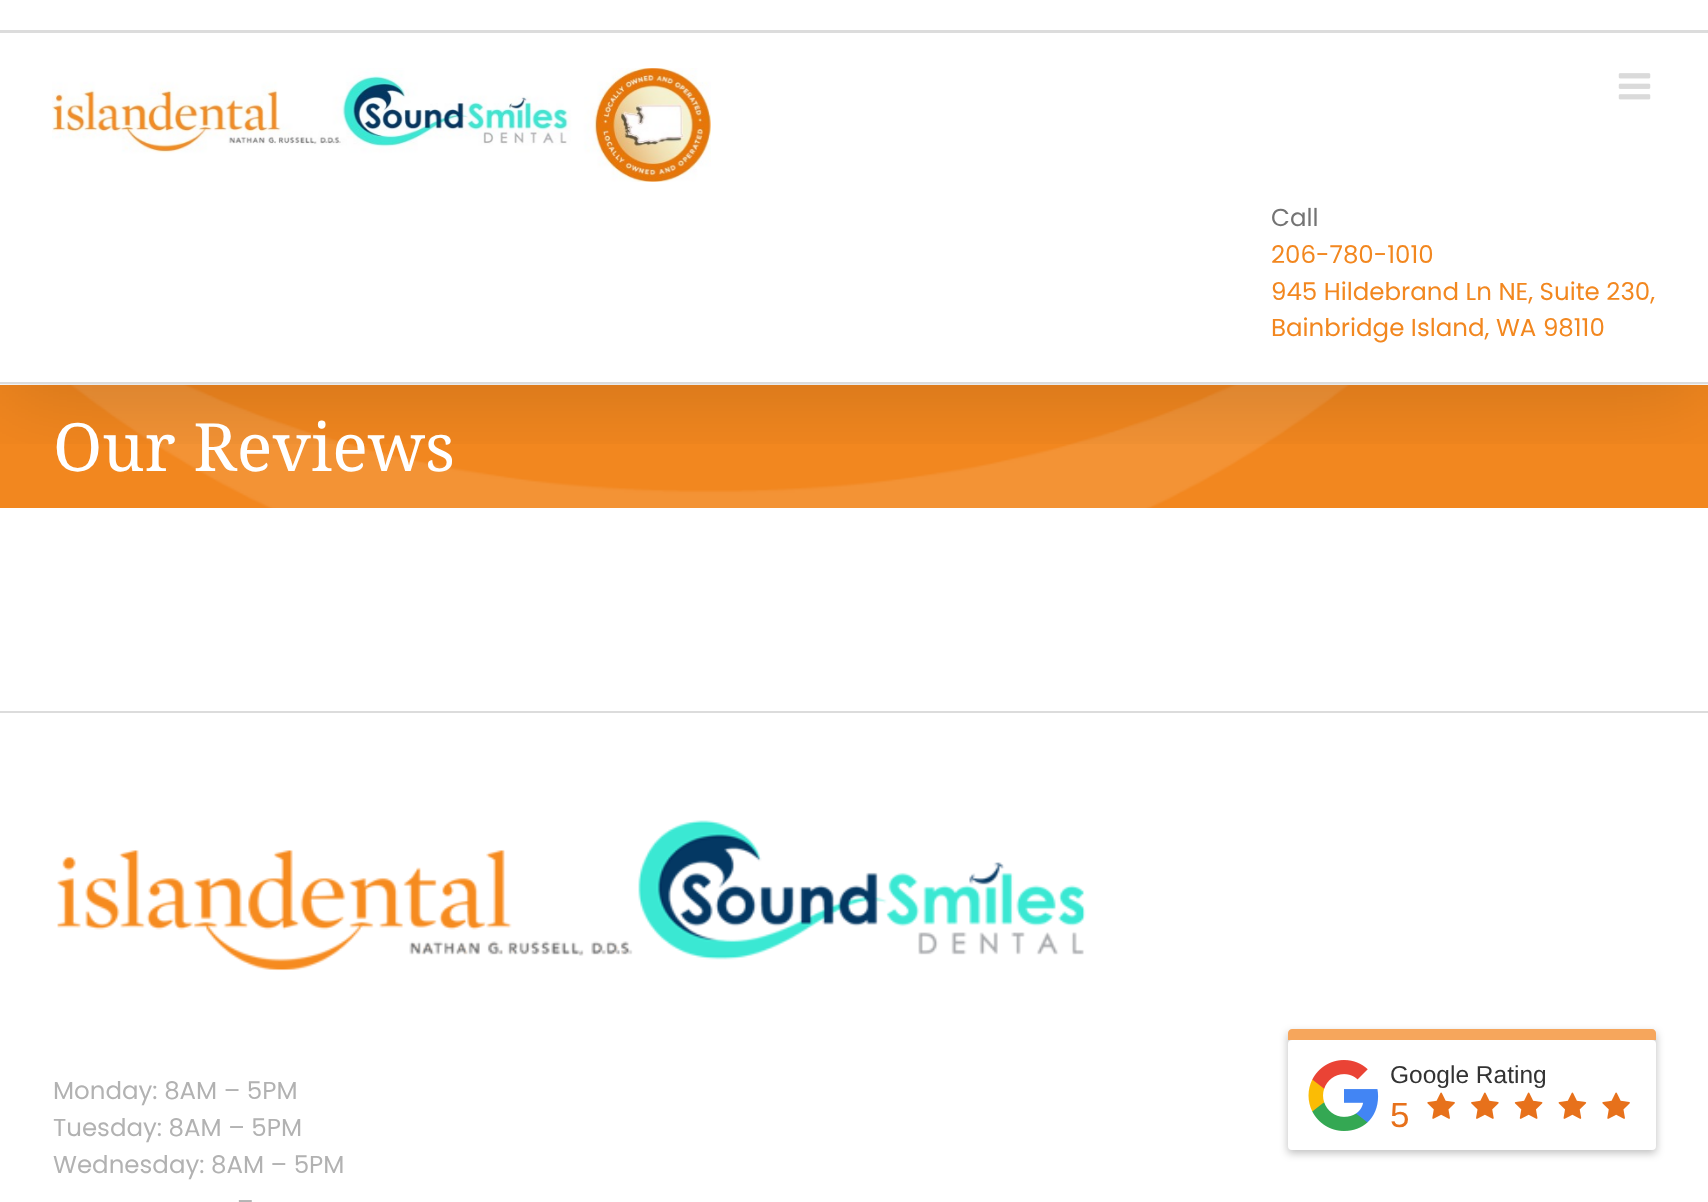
<svg xmlns="http://www.w3.org/2000/svg" width="1708" height="1202" viewBox="0 0 1708 1202">
  <defs>
    <clipPath id="clip1"><rect x="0" y="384" width="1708" height="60"/></clipPath>
  </defs>
  <rect width="100%" height="100%" fill="rgb(255,255,255)"/>
  <rect x="0" y="385" width="1708" height="123" fill="rgb(242,135,31)"/>
  <image x="71" y="385" width="1278" height="123" href="pic3.png"/>
  <g clip-path="url(#clip1)">
    <rect x="4" y="21" width="1701" height="376" fill="rgba(0,0,0,0.14)" filter="blur(44px)"/>
  </g>
  <rect x="0" y="30" width="1708" height="3" fill="rgb(220,220,220)"/>
  <rect x="0" y="382" width="1708" height="2" fill="rgb(220,220,220)"/>
  <image x="1618" y="73" width="33" height="27" href="pic1.png"/>
  <image x="52" y="68" width="659" height="114" href="pic2.png"/>
  <text x="1271" y="226" font-family="Poppins" font-size="24.5" fill="rgb(116,116,116)">Call</text>
  <g font-family="Poppins" font-size="24.5" fill="rgb(242,135,31)">
    <text>
      <tspan x="1271" y="263">206-780-1010</tspan>
      <tspan x="1271" y="300">945 Hildebrand Ln NE, Suite 230,</tspan>
      <tspan x="1271" y="336">Bainbridge Island, WA 98110</tspan>
    </text>
  </g>
  <text x="53" y="471" font-family="Noto Serif" font-size="66.5" fill="rgb(255,255,255)">Our Reviews</text>
  <rect x="0" y="711" width="1708" height="2" fill="rgb(220,220,220)"/>
  <image x="57" y="820" width="1029" height="151" href="pic4.png"/>
  <g font-family="Poppins" font-size="24.5" fill="rgb(178,178,178)">
    <text>
      <tspan x="53" y="1099">Monday: 8AM – 5PM</tspan>
      <tspan x="53" y="1136">Tuesday: 8AM – 5PM</tspan>
      <tspan x="53" y="1173">Wednesday: 8AM – 5PM</tspan>
    </text>
    <text x="237" y="1210">–</text>
  </g>
  <rect x="1288" y="1033" width="368" height="120" fill="rgba(0,0,0,0.26)" filter="blur(4.5px)"/>
  <path d="M1292 1029H1652C1654 1029 1656 1031 1656 1033V1040H1288V1033C1288 1031 1290 1029 1292 1029Z" fill="rgb(246,166,92)"/>
  <rect x="1288" y="1040" width="368" height="110" rx="4" fill="rgb(255,255,255)"/>
  <image x="1308" y="1060" width="71" height="71" href="pic5.png"/>
  <text x="1390" y="1083" font-family="Liberation Sans" font-size="24.5" fill="rgb(51,51,51)">Google Rating</text>
  <text x="1390" y="1127" font-family="Liberation Sans" font-size="35" fill="rgb(231,113,27)">5</text>
  <image x="1427" y="1092" width="28" height="27" href="pic6.png"/>
  <image x="1471" y="1092" width="28" height="27" href="pic7.png"/>
  <image x="1514" y="1092" width="29" height="27" href="pic8.png"/>
  <image x="1558" y="1092" width="29" height="27" href="pic9.png"/>
  <image x="1602" y="1092" width="28" height="27" href="pic6.png"/>
</svg>
